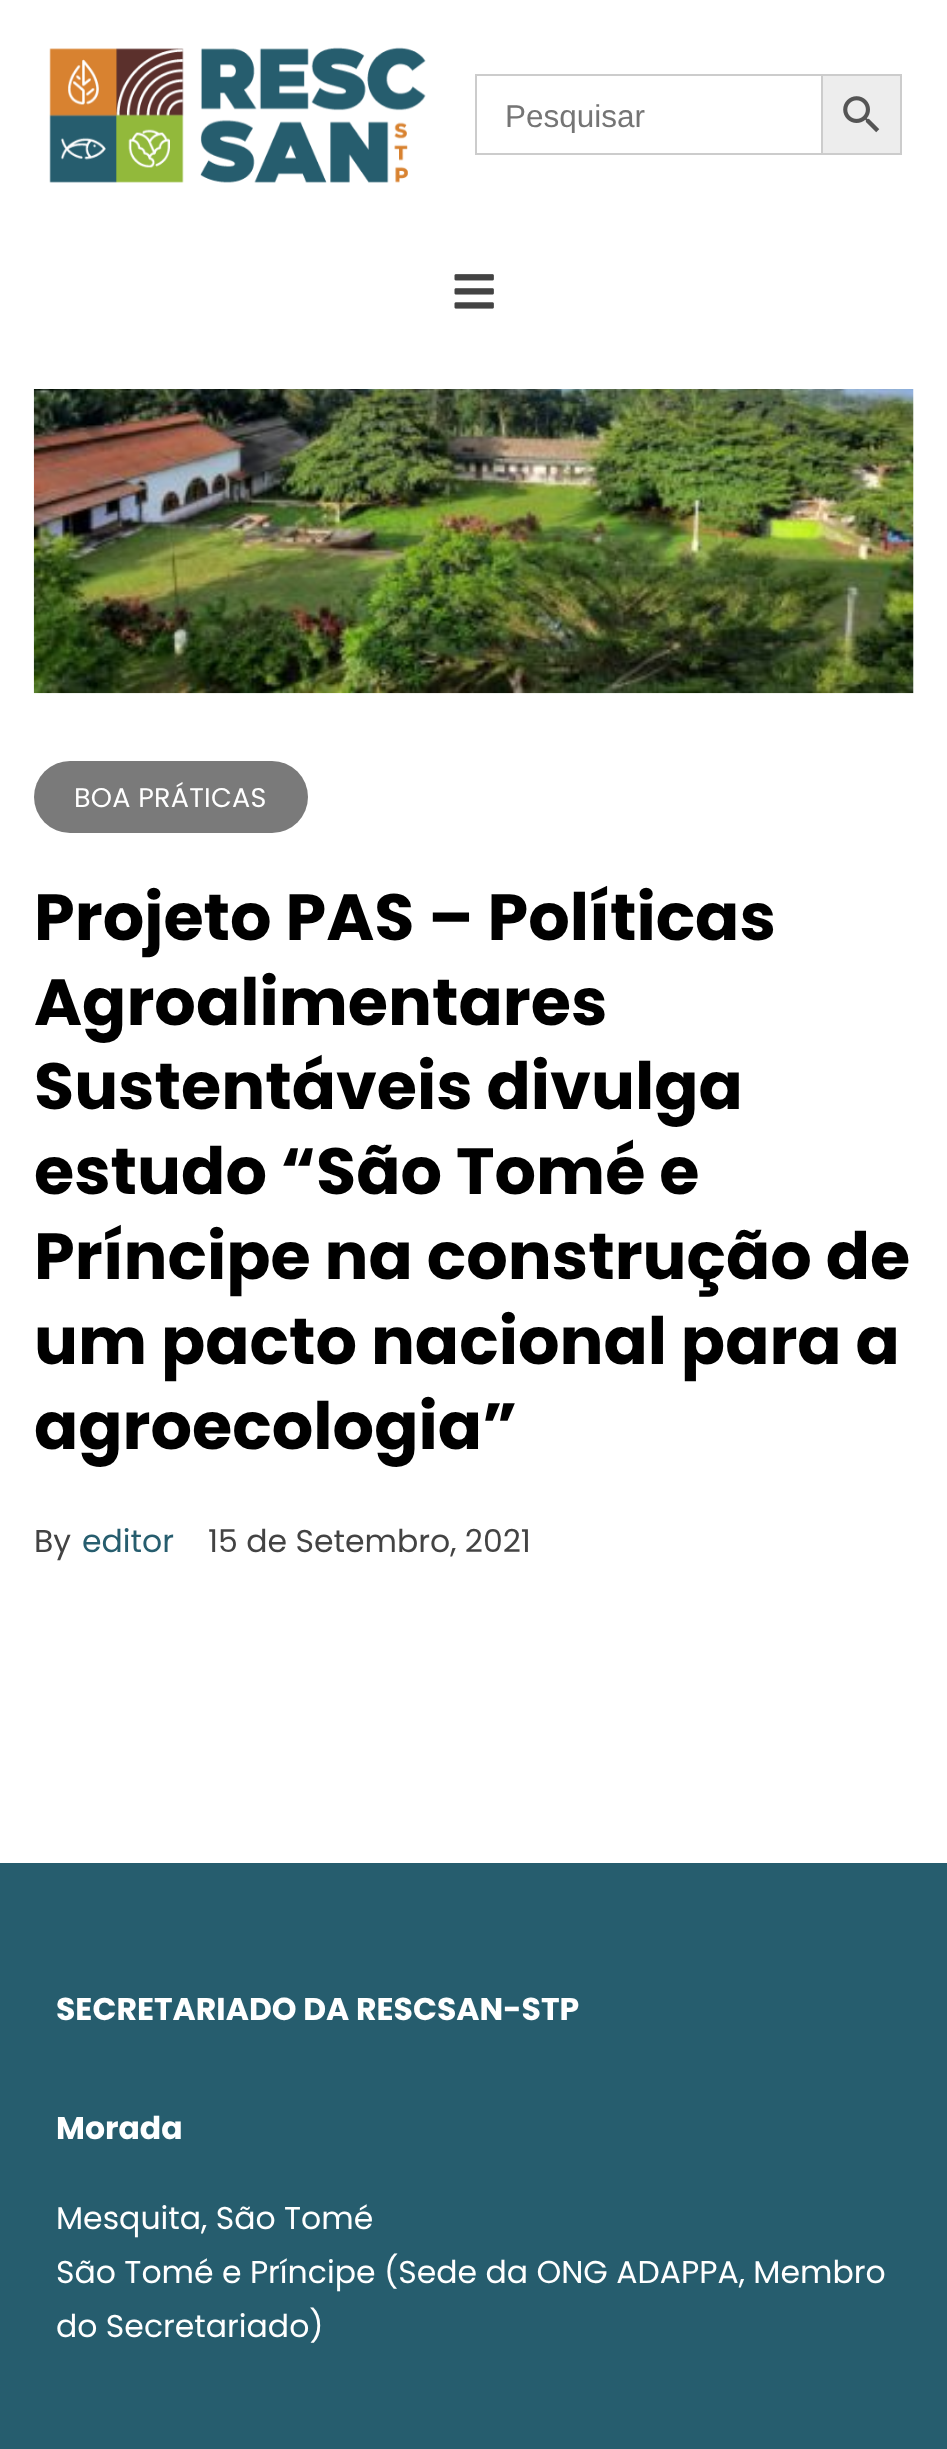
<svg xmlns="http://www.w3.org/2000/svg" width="947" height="2449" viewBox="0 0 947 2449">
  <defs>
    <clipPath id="clip1"><rect x="504" y="97" width="290" height="36"/></clipPath>
  </defs>
  <rect width="100%" height="100%" fill="rgb(255,255,255)"/>
  <image x="49" y="47" width="377" height="136" href="pic1.png"/>
  <rect x="475" y="74" width="346" height="2" fill="rgb(204,204,204)"/>
  <rect x="475" y="153" width="346" height="2" fill="rgb(204,204,204)"/>
  <rect x="475" y="74" width="2" height="81" fill="rgb(204,204,204)"/>
  <g clip-path="url(#clip1)">
    <text x="505" y="127" font-family="Liberation Sans" font-size="31.5" fill="rgb(117,117,117)">Pesquisar</text>
  </g>
  <rect x="822" y="75" width="79" height="79" fill="rgb(237,237,237)" stroke="rgb(204,204,204)" stroke-width="2"/>
  <image x="843" y="96" width="37" height="37" href="pic2.png"/>
  <image x="454" y="274" width="40" height="35" href="pic3.png"/>
  <image x="33" y="389" width="881" height="305" href="pic4.png"/>
  <rect x="34" y="761" width="274" height="72" rx="36" fill="rgb(122,122,122)"/>
  <text x="74" y="807" font-family="Poppins" font-size="27" letter-spacing="0.25" fill="rgb(255,255,255)">BOA PRÁTICAS</text>
  <g font-family="Poppins" font-size="65.25" font-weight="bold" fill="rgb(0,0,0)">
    <text>
      <tspan x="34" y="940">Projeto PAS – Políticas</tspan>
      <tspan x="34" y="1025">Agroalimentares</tspan>
      <tspan x="34" y="1109">Sustentáveis divulga</tspan>
      <tspan x="34" y="1194">estudo “São Tomé e</tspan>
      <tspan x="34" y="1279">Príncipe na construção de</tspan>
      <tspan x="34" y="1364">um pacto nacional para a</tspan>
      <tspan x="34" y="1449">agroecologia”</tspan>
    </text>
  </g>
  <text x="34" y="1552" font-family="Poppins" font-size="31.5" fill="rgb(67,67,67)">By</text>
  <text x="82" y="1552" font-family="Poppins" font-size="31.5" fill="rgb(38,93,110)">editor</text>
  <text x="208" y="1552" font-family="Poppins" font-size="31.5" fill="rgb(67,67,67)">15 de Setembro, 2021</text>
  <rect x="0" y="1863" width="947" height="586" fill="rgb(38,93,110)"/>
  <g font-family="Poppins" font-size="31.5" font-weight="bold" fill="rgb(255,255,255)">
    <text x="56" y="2020">SECRETARIADO DA RESCSAN-STP</text>
    <text x="56" y="2139">Morada</text>
  </g>
  <g font-family="Poppins" font-size="31.5" fill="rgb(255,255,255)">
    <text>
      <tspan x="56" y="2229">Mesquita, São Tomé</tspan>
      <tspan x="56" y="2283">São Tomé e Príncipe (Sede da ONG ADAPPA, Membro</tspan>
      <tspan x="56" y="2337">do Secretariado)</tspan>
    </text>
  </g>
</svg>
